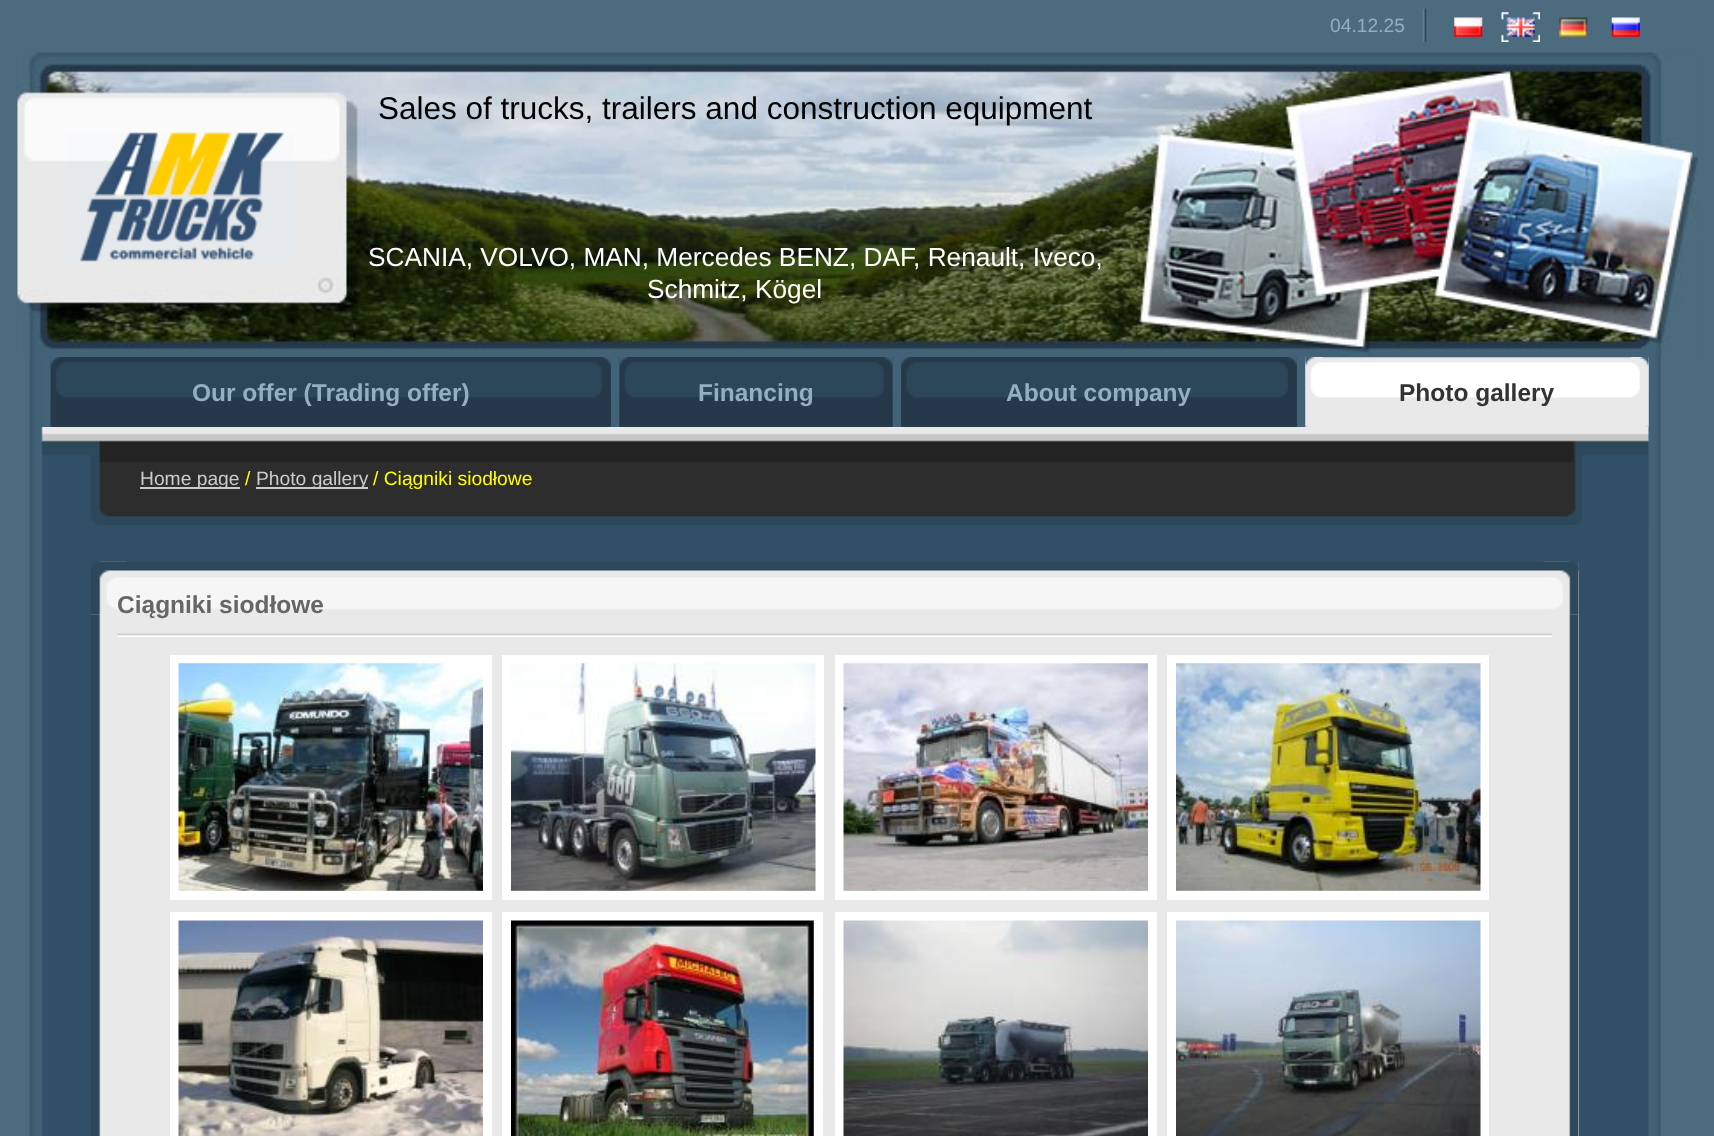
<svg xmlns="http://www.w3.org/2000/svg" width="1714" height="1136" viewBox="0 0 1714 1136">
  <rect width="100%" height="100%" fill="rgb(76,107,127)"/>
  <image x="29" y="357" width="1632" height="779" href="pic1.png"/>
  <image x="1422" y="8" width="5" height="34" href="pic2.png"/>
  <text x="1330" y="32" font-family="Liberation Sans" font-size="19.25" fill="rgb(148,175,192)">04.12.25</text>
  <image x="1454" y="17" width="29" height="20" href="pic3.png"/>
  <image x="1501" y="12" width="39" height="30" href="pic4.png"/>
  <image x="1506" y="17" width="29" height="20" href="pic5.png"/>
  <image x="1559" y="17" width="29" height="20" href="pic6.png"/>
  <image x="1611" y="17" width="29" height="20" href="pic7.png"/>
  <image x="17" y="52" width="1681" height="305" href="pic8.png"/>
  <text x="378" y="119" font-family="Liberation Sans" font-size="31.5" fill="rgb(0,0,0)">Sales of trucks, trailers and construction equipment</text>
  <image x="67" y="132" width="227" height="130" href="pic9.png"/>
  <g font-family="Liberation Sans" font-size="26.25" fill="rgb(255,255,255)">
    <text x="368" y="266">SCANIA, VOLVO, MAN, Mercedes BENZ, DAF, Renault, Iveco,</text>
    <text x="647" y="298">Schmitz, Kögel</text>
  </g>
  <rect x="42" y="357" width="1607" height="70" fill="rgb(66,98,119)"/>
  <image x="50" y="357" width="561" height="70" href="pic10.png"/>
  <image x="594" y="357" width="17" height="70" href="pic11.png"/>
  <image x="50" y="357" width="14" height="70" href="pic12.png"/>
  <text x="192" y="401" font-family="Liberation Sans" font-size="24.5" font-weight="bold" fill="rgb(148,175,192)">Our offer (Trading offer)</text>
  <image x="619" y="357" width="274" height="70" href="pic13.png"/>
  <image x="876" y="357" width="17" height="70" href="pic14.png"/>
  <image x="619" y="357" width="13" height="70" href="pic15.png"/>
  <text x="698" y="401" font-family="Liberation Sans" font-size="24.5" font-weight="bold" fill="rgb(148,175,192)">Financing</text>
  <image x="901" y="357" width="396" height="70" href="pic16.png"/>
  <image x="1280" y="357" width="17" height="70" href="pic11.png"/>
  <image x="901" y="357" width="13" height="70" href="pic17.png"/>
  <text x="1006" y="401" font-family="Liberation Sans" font-size="24.5" font-weight="bold" fill="rgb(148,175,192)">About company</text>
  <image x="1305" y="357" width="344" height="70" href="pic18.png"/>
  <image x="1631" y="357" width="18" height="70" href="pic19.png"/>
  <image x="1305" y="357" width="18" height="70" href="pic20.png"/>
  <text x="1399" y="401" font-family="Liberation Sans" font-size="24.5" font-weight="bold" fill="rgb(51,51,51)">Photo gallery</text>
  <image x="41" y="427" width="1608" height="98" href="pic21.png"/>
  <rect x="140" y="487" width="100" height="2" fill="rgb(204,204,204)"/>
  <text x="140" y="485" font-family="Liberation Sans" font-size="19.25" fill="rgb(204,204,204)">Home page</text>
  <text x="245" y="485" font-family="Liberation Sans" font-size="19.25" fill="rgb(255,255,0)">/</text>
  <rect x="256" y="487" width="112" height="2" fill="rgb(204,204,204)"/>
  <text x="256" y="485" font-family="Liberation Sans" font-size="19.25" fill="rgb(204,204,204)">Photo gallery</text>
  <text x="373" y="485" font-family="Liberation Sans" font-size="19.25" fill="rgb(255,255,0)">/ Ciągniki siodłowe</text>
  <rect x="126" y="562" width="1453" height="574" fill="rgb(233,233,233)"/>
  <image x="91" y="561" width="35" height="575" href="pic22.png"/>
  <image x="1543" y="561" width="36" height="575" href="pic23.png"/>
  <image x="91" y="561" width="1488" height="54" href="pic24.png"/>
  <image x="91" y="561" width="35" height="54" href="pic25.png"/>
  <image x="1544" y="561" width="35" height="54" href="pic26.png"/>
  <image x="117" y="633" width="1436" height="4" href="pic27.png"/>
  <text x="117" y="613" font-family="Liberation Sans" font-size="24.5" font-weight="bold" fill="rgb(102,102,102)">Ciągniki siodłowe</text>
  <rect x="174.5" y="659.5" width="313" height="236" fill="none" stroke="rgb(255,255,255)" stroke-width="9"/>
  <image x="178" y="663" width="305" height="228" href="pic28.png"/>
  <rect x="506.5" y="659.5" width="313" height="236" fill="none" stroke="rgb(255,255,255)" stroke-width="9"/>
  <image x="511" y="663" width="305" height="228" href="pic29.png"/>
  <rect x="839.5" y="659.5" width="313" height="236" fill="none" stroke="rgb(255,255,255)" stroke-width="9"/>
  <image x="843" y="663" width="305" height="228" href="pic30.png"/>
  <rect x="1171.5" y="659.5" width="313" height="236" fill="none" stroke="rgb(255,255,255)" stroke-width="9"/>
  <image x="1176" y="663" width="305" height="228" href="pic31.png"/>
  <rect x="174.5" y="916.5" width="313" height="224" fill="none" stroke="rgb(255,255,255)" stroke-width="9"/>
  <image x="178" y="920" width="305" height="216" href="pic32.png"/>
  <rect x="506.5" y="916.5" width="312" height="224" fill="none" stroke="rgb(255,255,255)" stroke-width="9"/>
  <image x="511" y="920" width="303" height="216" href="pic33.png"/>
  <rect x="839.5" y="916.5" width="313" height="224" fill="none" stroke="rgb(255,255,255)" stroke-width="9"/>
  <image x="843" y="920" width="305" height="216" href="pic34.png"/>
  <rect x="1171.5" y="916.5" width="313" height="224" fill="none" stroke="rgb(255,255,255)" stroke-width="9"/>
  <image x="1176" y="920" width="305" height="216" href="pic35.png"/>
</svg>
